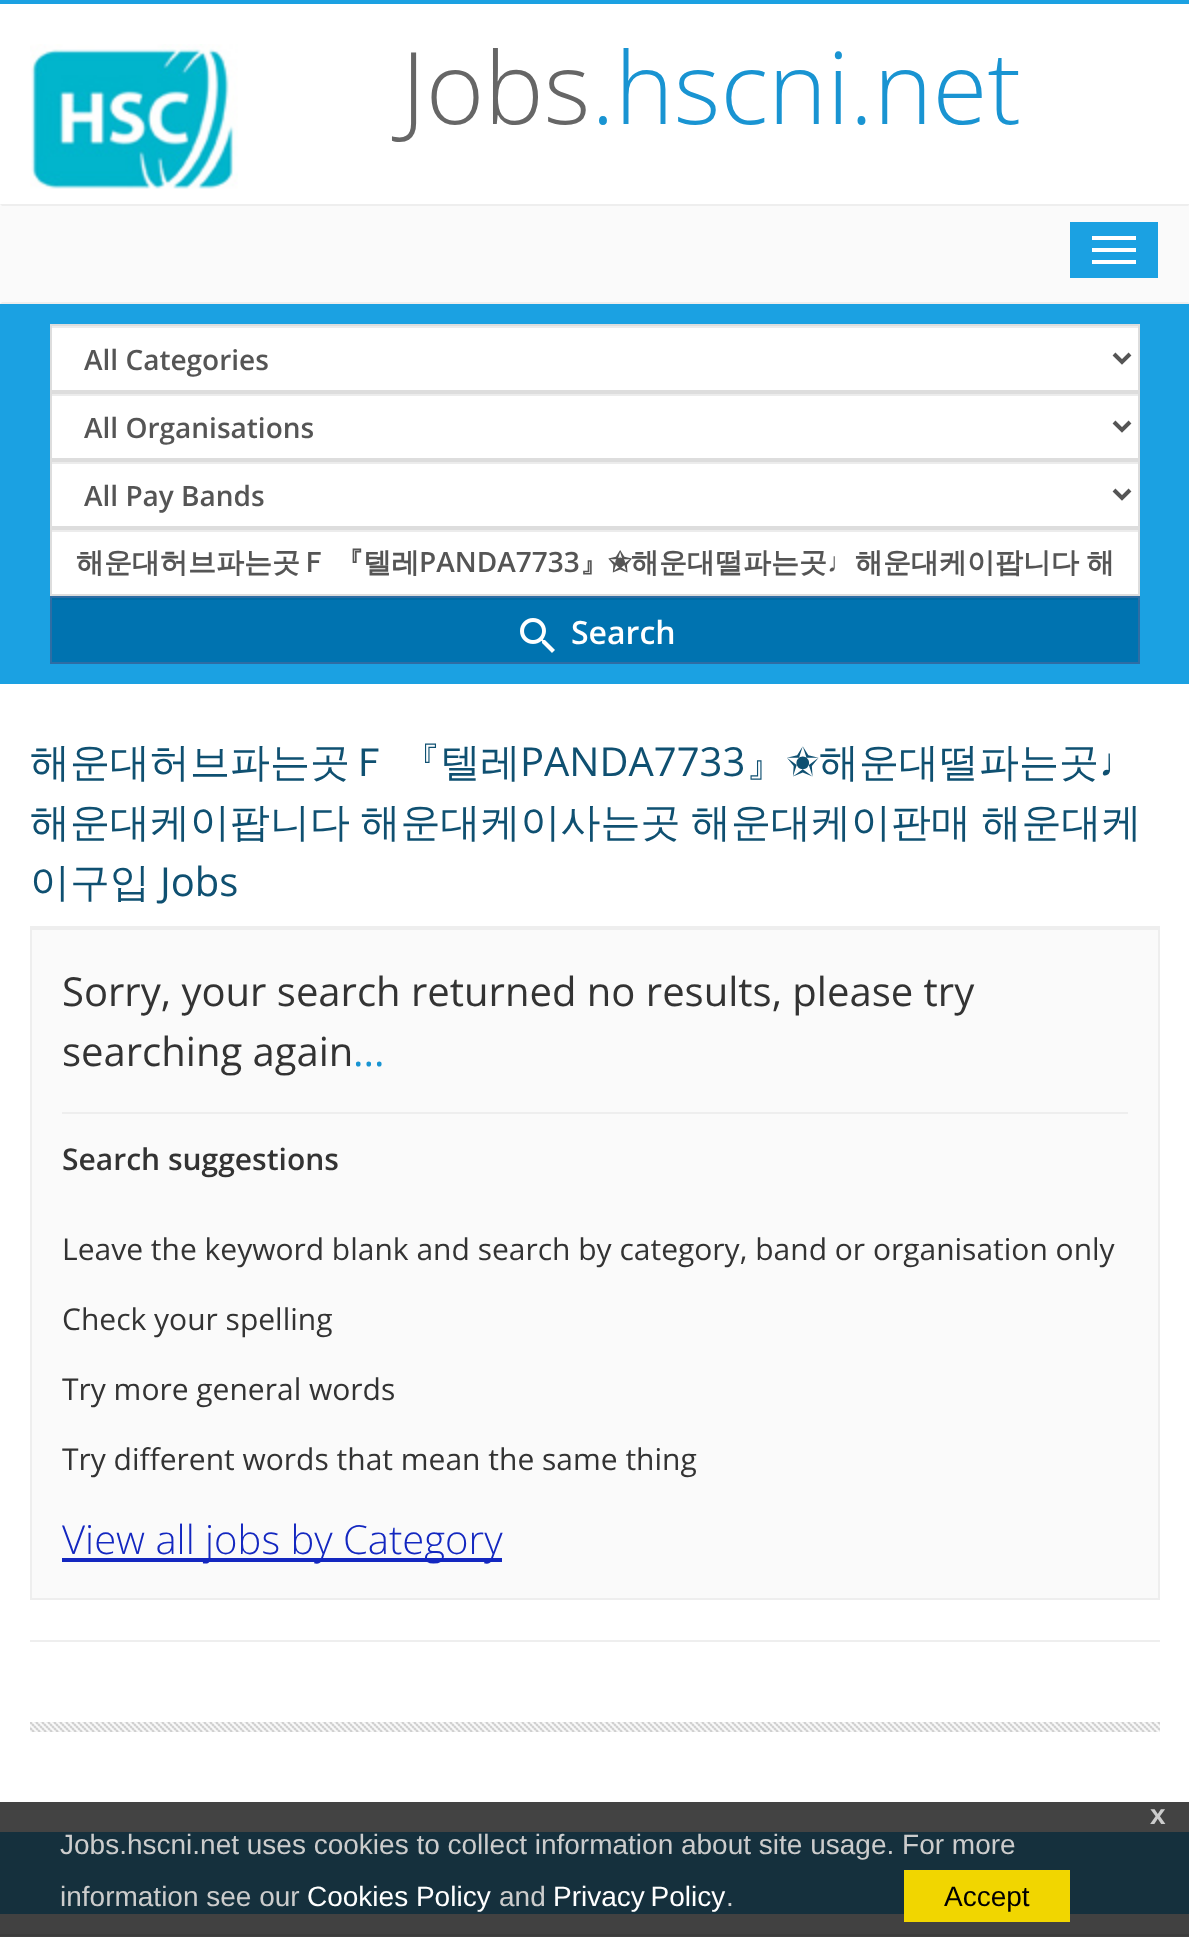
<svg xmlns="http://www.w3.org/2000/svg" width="1189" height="1937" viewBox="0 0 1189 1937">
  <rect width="100%" height="100%" fill="rgb(255,255,255)"/>
  <rect x="0" y="1802" width="1189" height="30" fill="rgb(67,67,67)"/>
  <rect x="0" y="0" width="1189" height="4" fill="rgb(27,161,226)"/>
  <image x="30" y="44" width="208" height="145" href="pic1.png"/>
  <text x="401" y="124" font-family="Open Sans" font-size="100" font-weight="300" fill="rgb(102,102,102)">Jobs</text>
  <text x="591" y="124" font-family="Open Sans" font-size="100" font-weight="300" fill="rgb(25,148,210)">.hscni.net</text>
  <rect x="0" y="204" width="1189" height="100" fill="rgb(250,250,250)"/>
  <path d="M0 204H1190L1188 206H2Z" fill="rgb(238,238,238)"/>
  <path d="M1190 304H0L2 302H1188Z" fill="rgb(238,238,238)"/>
  <rect x="1070" y="222" width="88" height="56" fill="rgb(27,161,226)"/>
  <rect x="1092" y="236" width="44" height="4" fill="rgb(255,255,255)"/>
  <rect x="1092" y="248" width="44" height="4" fill="rgb(255,255,255)"/>
  <rect x="1092" y="260" width="44" height="4" fill="rgb(255,255,255)"/>
  <rect x="0" y="304" width="1189" height="380" fill="rgb(27,161,226)"/>
  <rect x="52" y="328" width="1086" height="62" fill="rgb(255,255,255)"/>
  <rect x="52" y="326" width="1086" height="2" fill="rgb(236,236,236)"/>
  <rect x="51" y="325" width="1088" height="66" fill="none" stroke="rgb(221,221,221)" stroke-width="2"/>
  <path d="M1114 354L1122 362L1130 354" fill="none" stroke="rgb(85,85,85)" stroke-width="4"/>
  <text x="84" y="370" font-family="Open Sans" font-size="28" font-weight="600" fill="rgb(85,85,85)">All Categories</text>
  <rect x="52" y="396" width="1086" height="62" fill="rgb(255,255,255)"/>
  <rect x="52" y="394" width="1086" height="2" fill="rgb(236,236,236)"/>
  <rect x="51" y="393" width="1088" height="66" fill="none" stroke="rgb(221,221,221)" stroke-width="2"/>
  <path d="M1114 422L1122 430L1130 422" fill="none" stroke="rgb(85,85,85)" stroke-width="4"/>
  <text x="84" y="438" font-family="Open Sans" font-size="28" font-weight="600" fill="rgb(85,85,85)">All Organisations</text>
  <rect x="52" y="464" width="1086" height="62" fill="rgb(255,255,255)"/>
  <rect x="52" y="462" width="1086" height="2" fill="rgb(236,236,236)"/>
  <rect x="51" y="461" width="1088" height="66" fill="none" stroke="rgb(221,221,221)" stroke-width="2"/>
  <path d="M1114 490L1122 498L1130 490" fill="none" stroke="rgb(85,85,85)" stroke-width="4"/>
  <text x="84" y="506" font-family="Open Sans" font-size="28" font-weight="600" fill="rgb(85,85,85)">All Pay Bands</text>
  <rect x="52" y="532" width="1086" height="62" fill="rgb(255,255,255)"/>
  <rect x="52" y="530" width="1086" height="2" fill="rgb(236,236,236)"/>
  <rect x="51" y="529" width="1088" height="66" fill="none" stroke="rgb(221,221,221)" stroke-width="2"/>
  <text x="76" y="572" word-spacing="-1" font-family="WenQuanYi Zen Hei" font-size="28" font-weight="bold" fill="rgb(85,85,85)">해운대허브파는곳Ｆ 『텔레</text>
  <text x="419" y="572" font-family="Open Sans" font-size="28" font-weight="600" fill="rgb(85,85,85)">PANDA7733</text>
  <text x="580" y="572" font-family="WenQuanYi Zen Hei" font-size="28" font-weight="bold" fill="rgb(85,85,85)">』</text>
  <text x="608" y="572" font-family="DejaVu Sans" font-size="28" font-weight="bold" fill="rgb(85,85,85)">✬</text>
  <text x="631" y="572" font-family="WenQuanYi Zen Hei" font-size="28" font-weight="bold" fill="rgb(85,85,85)">해운대떨파는곳</text>
  <text x="827" y="572" font-family="Liberation Sans" font-size="28" font-weight="bold" fill="rgb(85,85,85)">♩</text>
  <text x="855" y="572" word-spacing="-1" font-family="WenQuanYi Zen Hei" font-size="28" font-weight="bold" fill="rgb(85,85,85)">해운대케이팝니다 해</text>
  <rect x="52" y="600" width="1086" height="62" fill="rgb(0,115,176)"/>
  <rect x="52" y="598" width="1086" height="2" fill="rgb(0,106,163)"/>
  <rect x="51" y="597" width="1088" height="66" fill="none" stroke="rgb(46,109,164)" stroke-width="2"/>
  <image x="520" y="618" width="35" height="35" href="pic2.png"/>
  <text x="571" y="644" font-family="Open Sans" font-size="32" font-weight="600" fill="rgb(255,255,255)">Search</text>
  <text x="30" y="776" word-spacing="-1.5" font-family="WenQuanYi Zen Hei" font-size="40" font-weight="500" fill="rgb(15,80,113)">해운대허브파는곳Ｆ 『텔레</text>
  <text x="520" y="776" font-family="Open Sans" font-size="40" fill="rgb(15,80,113)">PANDA7733</text>
  <text x="746" y="776" font-family="WenQuanYi Zen Hei" font-size="40" font-weight="500" fill="rgb(15,80,113)">』</text>
  <text x="786" y="776" font-family="DejaVu Sans" font-size="40" fill="rgb(15,80,113)">✬</text>
  <text x="819" y="776" font-family="WenQuanYi Zen Hei" font-size="40" font-weight="500" fill="rgb(15,80,113)">해운대떨파는곳</text>
  <text x="1099" y="776" font-family="Liberation Sans" font-size="40" fill="rgb(15,80,113)">♩</text>
  <g font-family="WenQuanYi Zen Hei" font-size="40" font-weight="500" fill="rgb(15,80,113)">
    <text>
      <tspan x="30" y="836" word-spacing="-1.5">해운대케이팝니다 해운대케이사는곳 해운대케이판매 해운대케</tspan>
      <tspan x="30" y="896">이구입</tspan>
    </text>
  </g>
  <text x="160" y="896" font-family="Open Sans" font-size="40" fill="rgb(15,80,113)">Jobs</text>
  <rect x="32" y="930" width="1126" height="668" fill="rgb(250,250,250)"/>
  <rect x="32" y="928" width="1126" height="2" fill="rgb(238,238,238)"/>
  <rect x="31" y="927" width="1128" height="672" fill="none" stroke="rgb(238,238,238)" stroke-width="2"/>
  <g font-family="Open Sans" font-size="40" fill="rgb(51,51,51)">
    <text>
      <tspan x="62" y="1006">Sorry, your search returned no results, please try</tspan>
      <tspan x="62" y="1066">searching again</tspan>
    </text>
  </g>
  <text x="353" y="1066" font-family="Open Sans" font-size="40" fill="rgb(25,148,210)">...</text>
  <rect x="62" y="1112" width="1066" height="2" fill="rgb(238,238,238)"/>
  <text x="62" y="1170" font-family="Open Sans" font-size="30" font-weight="600" fill="rgb(51,51,51)">Search suggestions</text>
  <g font-family="Open Sans" font-size="30" fill="rgb(51,51,51)">
    <text x="62" y="1260">Leave the keyword blank and search by category, band or organisation only</text>
    <text x="62" y="1330">Check your spelling</text>
    <text x="62" y="1400">Try more general words</text>
    <text x="62" y="1470">Try different words that mean the same thing</text>
  </g>
  <rect x="62" y="1558" width="440" height="4" fill="rgb(19,39,192)"/>
  <text x="62" y="1554" font-family="Open Sans" font-size="40" font-weight="300" fill="rgb(19,39,192)">View all jobs by Category</text>
  <rect x="30" y="1640" width="1130" height="2" fill="rgb(238,238,238)"/>
  <image x="30" y="1722" width="1130" height="10" href="pic3.png"/>
  <text x="1150" y="1824" font-family="Liberation Sans" font-size="28" font-weight="bold" fill="rgb(204,204,204)">x</text>
  <rect x="0" y="1832" width="1189" height="82" fill="rgb(21,48,61)"/>
  <g font-family="Liberation Sans" font-size="28" fill="rgb(204,204,204)">
    <text>
      <tspan x="60" y="1854">Jobs.hscni.net uses cookies to collect information about site usage. For more</tspan>
      <tspan x="60" y="1906">information see our</tspan>
    </text>
  </g>
  <text x="307" y="1906" font-family="Liberation Sans" font-size="28" fill="rgb(255,255,255)">Cookies Policy</text>
  <text x="499" y="1906" font-family="Liberation Sans" font-size="28" fill="rgb(204,204,204)">and</text>
  <text x="553" y="1906" word-spacing="-2" font-family="Liberation Sans" font-size="28" fill="rgb(255,255,255)">Privacy Policy</text>
  <text x="726" y="1906" font-family="Liberation Sans" font-size="28" fill="rgb(204,204,204)">.</text>
  <rect x="0" y="1914" width="1189" height="23" fill="rgb(65,65,65)"/>
  <rect x="904" y="1870" width="166" height="52" fill="rgb(241,214,0)"/>
  <text x="944" y="1906" font-family="Liberation Sans" font-size="28" fill="rgb(0,0,0)">Accept</text>
  <rect x="0" y="1934" width="1189" height="2" fill="rgb(60,60,60)"/>
</svg>
